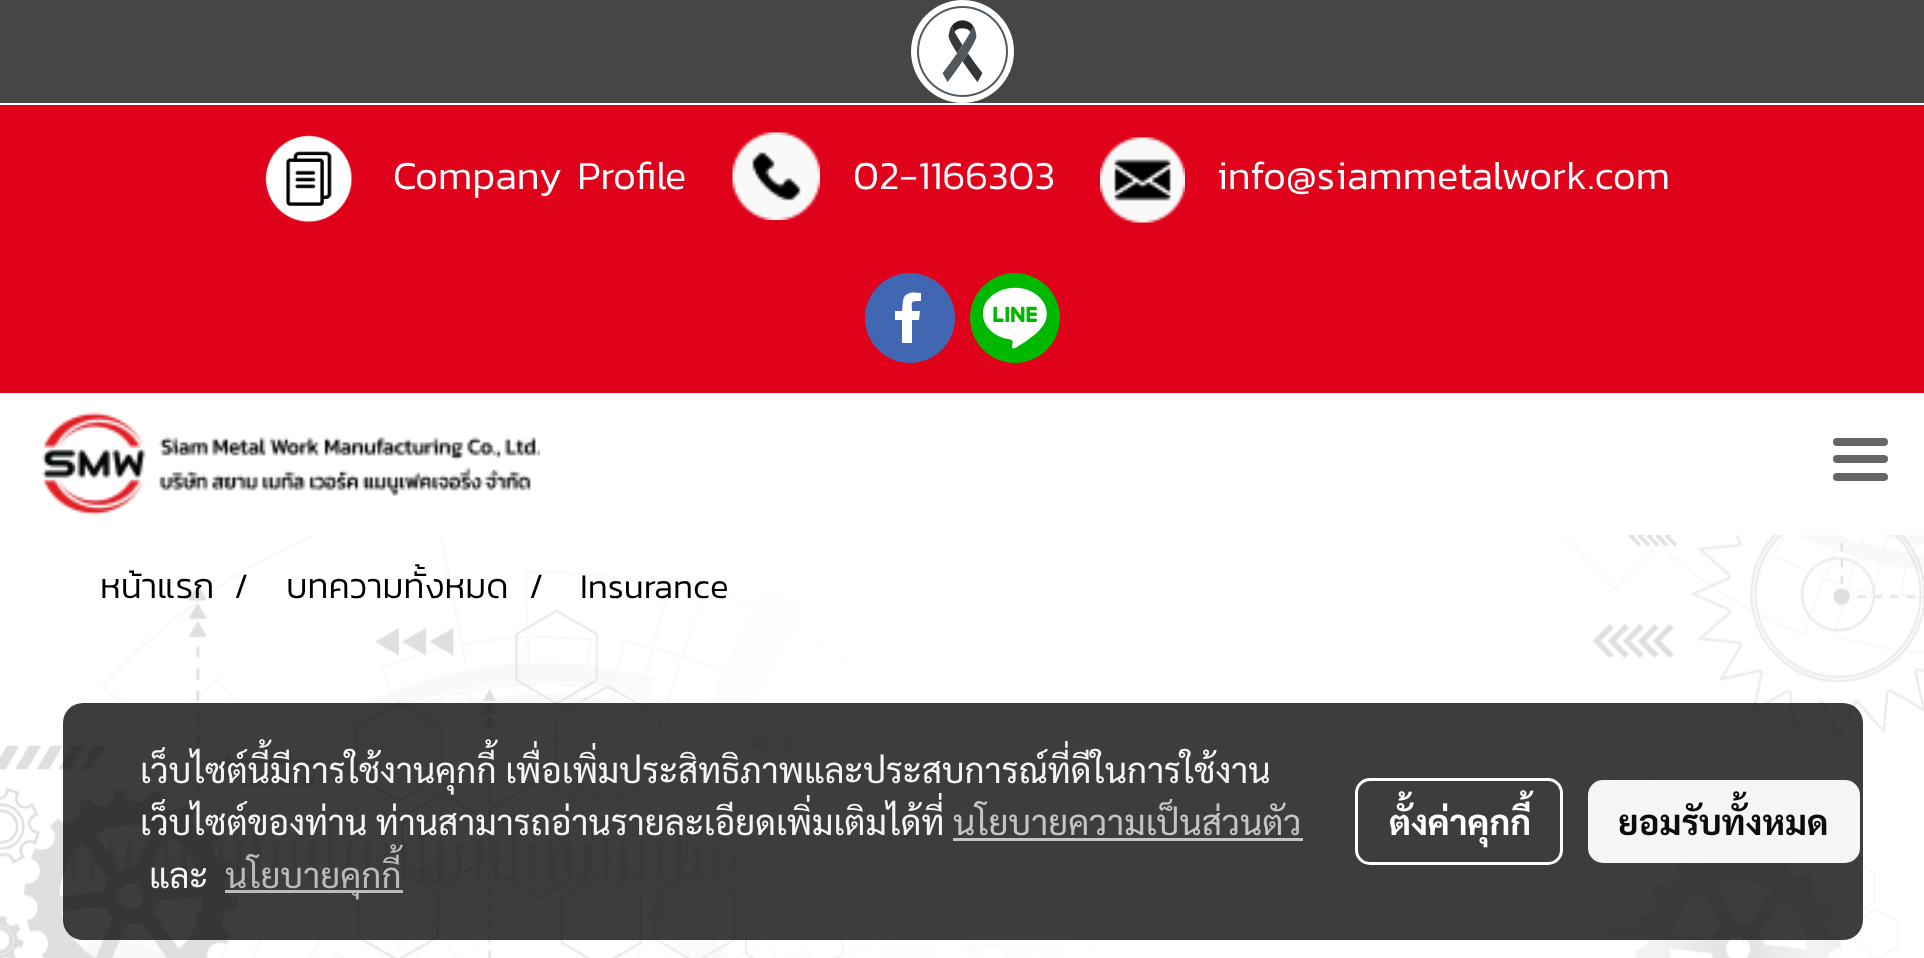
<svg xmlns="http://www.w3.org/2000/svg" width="1924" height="958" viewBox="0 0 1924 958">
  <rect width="100%" height="100%" fill="rgb(255,255,255)"/>
  <image x="0" y="535" width="1924" height="423" href="pic1.png"/>
  <rect x="0" y="0" width="1924" height="103" fill="rgb(70,70,70)"/>
  <image x="911" y="0" width="103" height="103" href="pic2.png"/>
  <rect x="0" y="105" width="1924" height="288" fill="rgb(224,2,27)"/>
  <image x="265" y="135" width="88" height="88" href="pic3.png"/>
  <text x="393" y="189" font-family="Kanit" font-size="40" font-weight="300" fill="rgb(255,255,255)">Company Profile</text>
  <image x="732" y="132" width="88" height="88" href="pic4.png"/>
  <text x="853" y="189" font-family="Kanit" font-size="40" font-weight="300" fill="rgb(255,255,255)">02-1166303</text>
  <image x="1100" y="137" width="85" height="86" href="pic5.png"/>
  <text x="1216" y="189" font-family="Kanit" font-size="40" font-weight="300" fill="rgb(255,255,255)">info@siammetalwork.com</text>
  <circle cx="910" cy="318" r="45" fill="rgb(66,103,178)"/>
  <path d="M902 343V320H895V311H902L903 301C904 292 913 292 921 293V301C910 301 912 301 912 311H920L919 320H912V343" fill="rgb(255,255,255)"/>
  <circle cx="1015" cy="318" r="45" fill="rgb(0,184,0)"/>
  <image x="971" y="287" width="88" height="62" href="pic6.png"/>
  <image x="42" y="412" width="498" height="104" href="pic7.png"/>
  <rect x="1833" y="455" width="55" height="8" rx="4" fill="rgb(102,102,102)"/>
  <rect x="1833" y="438" width="55" height="8" rx="4" fill="rgb(102,102,102)"/>
  <rect x="1833" y="473" width="55" height="8" rx="4" fill="rgb(102,102,102)"/>
  <g font-family="Kanit" font-size="35" font-weight="300" fill="rgb(0,0,0)">
    <text x="100" y="598">หน้าแรก</text>
    <text x="234" y="598">/</text>
    <text x="286" y="598">บทความทั้งหมด</text>
    <text x="529" y="598">/</text>
    <text x="580" y="598">Insurance</text>
  </g>
  <rect x="63" y="703" width="1800" height="237" rx="20" fill="rgba(0,0,0,0.76)"/>
  <g font-family="Sarabun" font-size="35" fill="rgb(245,245,245)">
    <text>
      <tspan x="140" y="783">เว็บไซต์นี้มีการใช้งานคุกกี้ เพื่อเพิ่มประสิทธิภาพและประสบการณ์ที่ดีในการใช้งาน</tspan>
      <tspan x="140" y="835">เว็บไซต์ของท่าน ท่านสามารถอ่านรายละเอียดเพิ่มเติมได้ที่</tspan>
    </text>
  </g>
  <text x="953" y="835" font-family="Sarabun" font-size="35" fill="rgb(197,197,197)">นโยบายความเป็นส่วนตัว</text>
  <rect x="953" y="838" width="350" height="3" fill="rgb(197,197,197)"/>
  <text x="149" y="888" font-family="Sarabun" font-size="35" fill="rgb(245,245,245)">และ</text>
  <rect x="225" y="890" width="178" height="3" fill="rgba(194,194,194,0.95)"/>
  <text x="225" y="888" font-family="Sarabun" font-size="35" fill="rgb(187,187,187)">นโยบายคุกกี้</text>
  <rect x="1356.5" y="779.5" width="205" height="84" rx="13.5" fill="none" stroke="rgb(255,255,255)" stroke-width="3"/>
  <text x="1389" y="835" font-family="Sarabun" font-size="35" font-weight="bold" fill="rgb(255,255,255)">ตั้งค่าคุกกี้</text>
  <rect x="1588" y="780" width="272" height="83" rx="15" fill="rgba(255,255,255,0.95)"/>
  <text x="1618" y="835" font-family="Sarabun" font-size="35" font-weight="bold" fill="rgb(12,12,12)">ยอมรับทั้งหมด</text>
</svg>
